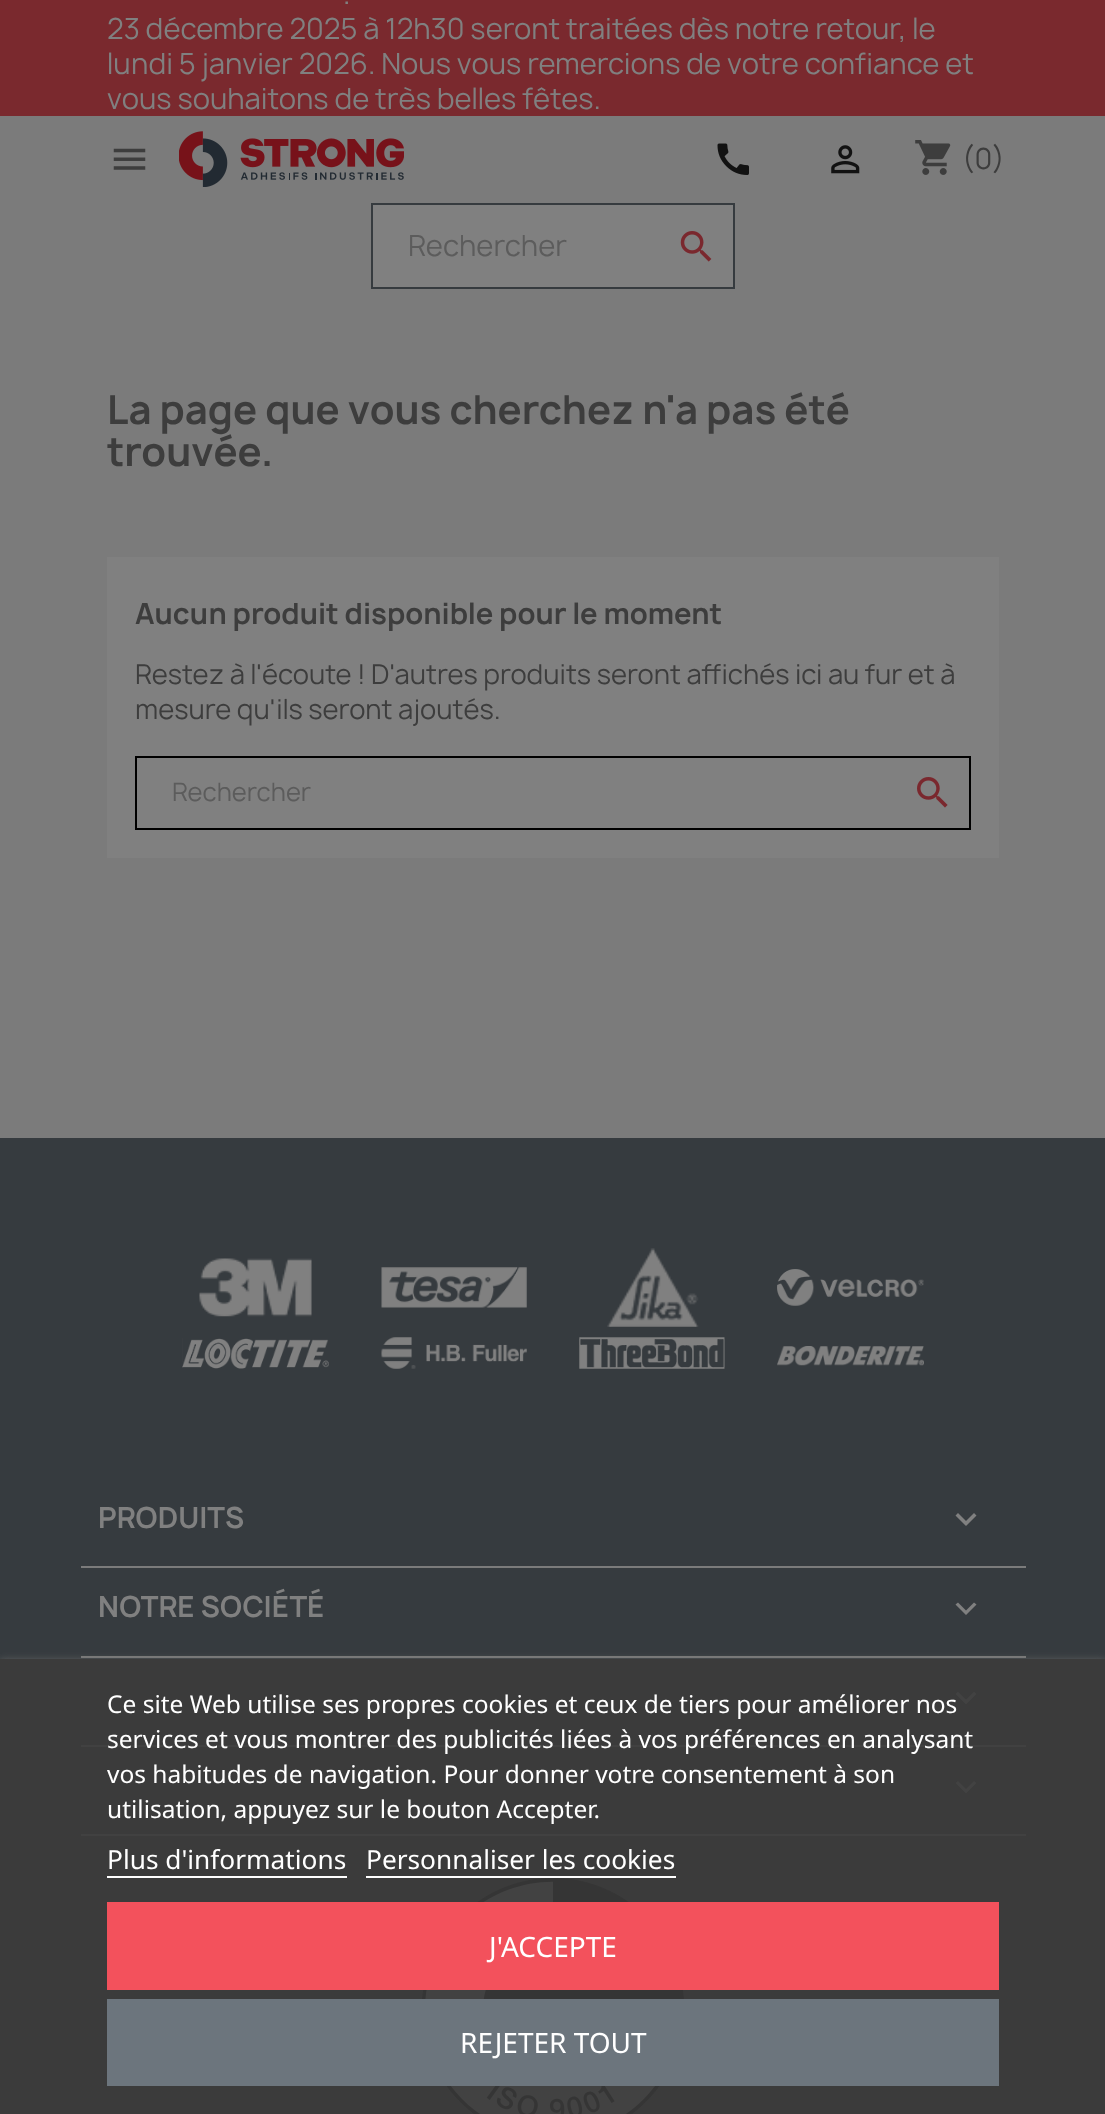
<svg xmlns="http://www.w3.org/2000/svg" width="1105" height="2114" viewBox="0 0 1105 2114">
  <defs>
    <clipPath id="clip1"><rect x="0" y="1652" width="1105" height="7"/></clipPath>
  </defs>
  <rect width="100%" height="100%" fill="rgb(123,123,123)"/>
  <rect x="0" y="0" width="1105" height="116" fill="rgb(122,41,46)"/>
  <g font-family="Manrope" font-size="28" fill="rgb(128,128,128)">
    <text x="343" y="4">.</text>
    <text>
      <tspan x="107" y="39">23 décembre 2025 à 12h30 seront traitées dès notre retour, le</tspan>
      <tspan x="107" y="74">lundi 5 janvier 2026. Nous vous remercions de votre confiance et</tspan>
      <tspan x="107" y="109">vous souhaitons de très belles fêtes.</tspan>
    </text>
  </g>
  <image x="113" y="148" width="33" height="22" href="pic1.png"/>
  <image x="179" y="131" width="225" height="56" href="pic2.png"/>
  <image x="717" y="143" width="32" height="32" href="pic3.png"/>
  <image x="831" y="145" width="29" height="29" href="pic4.png"/>
  <image x="915" y="140" width="36" height="35" href="pic5.png"/>
  <text x="962" y="169" font-family="Manrope" font-size="28" fill="rgb(61,61,61)">(0)</text>
  <rect x="372" y="204" width="362" height="84" fill="rgb(128,128,128)" stroke="rgb(54,59,63)" stroke-width="2"/>
  <text x="408" y="256" font-family="Manrope" font-size="28" fill="rgb(92,92,92)">Rechercher</text>
  <image x="680" y="231" width="32" height="31" href="pic6.png"/>
  <g font-family="Manrope" font-size="38.5" font-weight="bold" fill="rgb(61,61,61)">
    <text>
      <tspan x="107" y="424">La page que vous cherchez n'a pas été</tspan>
      <tspan x="107" y="466">trouvée.</tspan>
    </text>
  </g>
  <rect x="107" y="557" width="892" height="301" fill="rgb(128,128,128)"/>
  <text x="135" y="624" font-family="Manrope" font-size="28" font-weight="bold" fill="rgb(61,61,61)">Aucun produit disponible pour le moment</text>
  <g font-family="Manrope" font-size="26.25" fill="rgb(61,61,61)">
    <text>
      <tspan x="135" y="684">Restez à l'écoute ! D'autres produits seront affichés ici au fur et à</tspan>
      <tspan x="135" y="719">mesure qu'ils seront ajoutés.</tspan>
    </text>
  </g>
  <rect x="136" y="757" width="834" height="72" fill="none" stroke="rgb(0,0,0)" stroke-width="2"/>
  <text x="172" y="801" font-family="Manrope" font-size="24.5" fill="rgb(92,92,92)">Rechercher</text>
  <image x="917" y="777" width="31" height="31" href="pic7.png"/>
  <rect x="0" y="1138" width="1105" height="521" fill="rgb(54,59,63)"/>
  <rect x="0" y="1659" width="1105" height="455" fill="rgb(59,59,59)"/>
  <image x="199" y="1258" width="113" height="59" href="pic8.png"/>
  <image x="381" y="1267" width="146" height="41" href="pic9.png"/>
  <image x="607" y="1248" width="92" height="79" href="pic10.png"/>
  <image x="777" y="1269" width="147" height="37" href="pic11.png"/>
  <image x="182" y="1338" width="147" height="31" href="pic12.png"/>
  <image x="381" y="1337" width="146" height="32" href="pic13.png"/>
  <image x="579" y="1337" width="146" height="32" href="pic14.png"/>
  <image x="777" y="1346" width="147" height="20" href="pic15.png"/>
  <rect x="81" y="1566" width="945" height="2" fill="rgb(123,123,123)"/>
  <text x="98" y="1528" font-family="Manrope" font-size="28" font-weight="bold" fill="rgb(128,128,128)">PRODUITS</text>
  <path d="M958 1513L966 1521L974 1513L976.5 1515.5L966 1526L955.5 1515.5Z" fill="rgb(128,128,128)"/>
  <rect x="81" y="1656" width="945" height="2" fill="rgb(123,123,123)"/>
  <text x="98" y="1617" font-family="Manrope" font-size="28" font-weight="bold" fill="rgb(128,128,128)">NOTRE SOCIÉTÉ</text>
  <path d="M958 1602.5L966 1610.5L974 1602.5L976.5 1604.5L966 1615L955.5 1604.5Z" fill="rgb(128,128,128)"/>
  <rect x="81" y="1745" width="945" height="2" fill="rgb(65,65,65)"/>
  <path d="M958 1691.5L966 1699.5L974 1691.5L976.5 1694L966 1704.5L955.5 1694Z" fill="rgb(66,66,66)"/>
  <rect x="81" y="1834" width="945" height="2" fill="rgb(65,65,65)"/>
  <path d="M958 1781L966 1789L974 1781L976.5 1783L966 1793.5L955.5 1783Z" fill="rgb(66,66,66)"/>
  <image x="422" y="1878" width="262" height="236" href="pic16.png"/>
  <g clip-path="url(#clip1)">
    <rect x="0" y="1661" width="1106" height="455" fill="rgb(112,112,112)" filter="blur(4.5px)"/>
  </g>
  <g font-family="Noto Sans" font-size="24.5" fill="rgb(255,255,255)">
    <text>
      <tspan x="107" y="1713">Ce site Web utilise ses propres cookies et ceux de tiers pour améliorer nos</tspan>
      <tspan x="107" y="1748">services et vous montrer des publicités liées à vos préférences en analysant</tspan>
      <tspan x="107" y="1783">vos habitudes de navigation. Pour donner votre consentement à son</tspan>
      <tspan x="107" y="1818">utilisation, appuyez sur le bouton Accepter.</tspan>
    </text>
  </g>
  <text x="107" y="1869" font-family="Noto Sans" font-size="26.25" fill="rgb(255,255,255)">Plus d'informations</text>
  <rect x="107" y="1876" width="240" height="2" fill="rgb(255,255,255)"/>
  <text x="366" y="1869" font-family="Noto Sans" font-size="26.25" fill="rgb(255,255,255)">Personnaliser les cookies</text>
  <rect x="366" y="1876" width="310" height="2" fill="rgb(255,255,255)"/>
  <rect x="107" y="1902" width="892" height="88" fill="rgb(243,81,92)"/>
  <text x="489" y="1957" font-family="Noto Sans" font-size="28" fill="rgb(255,255,255)">J'ACCEPTE</text>
  <rect x="107" y="1999" width="892" height="87" fill="rgb(108,117,125)"/>
  <text x="460" y="2053" font-family="Noto Sans" font-size="28" fill="rgb(255,255,255)">REJETER TOUT</text>
</svg>
